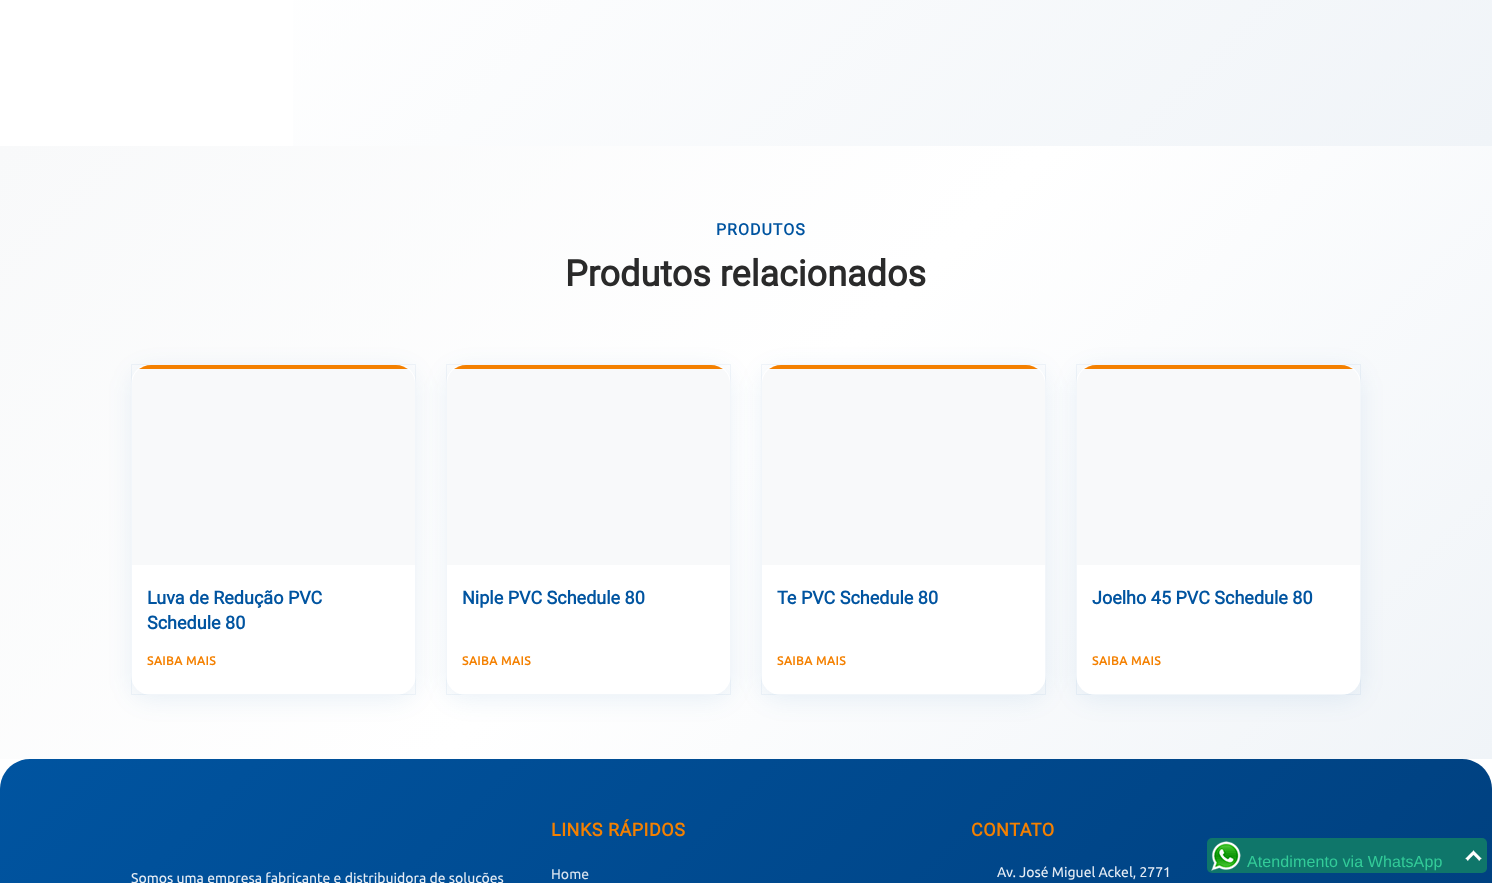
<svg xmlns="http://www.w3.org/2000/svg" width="1492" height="883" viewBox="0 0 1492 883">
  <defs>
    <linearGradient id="g1" gradientUnits="userSpaceOnUse" x1="26" y1="-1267" x2="1466" y2="172"><stop offset="0" stop-color="rgb(248,249,250)"/><stop offset="0.5" stop-color="rgb(255,255,255)"/><stop offset="1" stop-color="rgb(240,244,248)"/></linearGradient>
    <linearGradient id="g2" gradientUnits="userSpaceOnUse" x1="220" y1="-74" x2="1272" y2="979"><stop offset="0" stop-color="rgb(248,249,250)"/><stop offset="0.5" stop-color="rgb(255,255,255)"/><stop offset="1" stop-color="rgb(240,244,248)"/></linearGradient>
    <clipPath id="clip1"><rect x="132" y="365" width="283" height="329" rx="19"/></clipPath>
    <clipPath id="clip2"><rect x="447" y="365" width="283" height="329" rx="19"/></clipPath>
    <clipPath id="clip3"><rect x="762" y="365" width="283" height="329" rx="19"/></clipPath>
    <clipPath id="clip4"><rect x="1077" y="365" width="283" height="329" rx="19"/></clipPath>
    <linearGradient id="g3" gradientUnits="userSpaceOnUse" x1="258" y1="501" x2="1234" y2="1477"><stop offset="0" stop-color="rgb(0,84,160)"/><stop offset="1" stop-color="rgb(0,61,122)"/></linearGradient>
  </defs>
  <rect width="100%" height="100%" fill="rgb(255,255,255)"/>
  <rect x="293" y="0" width="1199" height="146" fill="url(#g1)"/>
  <rect x="0" y="146" width="1492" height="613" fill="url(#g2)"/>
  <text x="716" y="235" font-family="Roboto" font-size="16" font-weight="bold" letter-spacing="1" fill="rgb(0,84,160)">PRODUTOS</text>
  <text x="565" y="286" font-family="Roboto" font-size="36" font-weight="bold" fill="rgb(42,42,42)">Produtos relacionados</text>
  <rect x="131" y="369" width="285" height="331" rx="20" fill="rgba(0,84,160,0.08)" filter="blur(12.5px)"/>
  <rect x="131" y="364" width="285" height="331" rx="20" fill="rgb(255,255,255)"/>
  <rect x="131.5" y="364.5" width="284" height="330" fill="none" stroke="rgba(0,84,160,0.05)"/>
  <rect x="446" y="369" width="285" height="331" rx="20" fill="rgba(0,84,160,0.08)" filter="blur(12.5px)"/>
  <path d="M151 365H396C406.5 365 415 373.5 415 384V565H132V384C132 373.5 140.5 365 151 365Z" fill="rgb(248,249,250)"/>
  <g clip-path="url(#clip1)">
    <rect x="132" y="365" width="283" height="4" fill="rgb(244,128,0)"/>
  </g>
  <g font-family="Roboto" font-size="18" font-weight="bold" fill="rgb(0,84,160)">
    <text>
      <tspan x="147" y="604">Luva de Redução PVC</tspan>
      <tspan x="147" y="629">Schedule 80</tspan>
    </text>
  </g>
  <text x="147" y="665" font-family="Ubuntu" font-size="12" font-weight="bold" letter-spacing="0.5" fill="rgb(244,128,0)">SAIBA MAIS</text>
  <rect x="446" y="364" width="285" height="331" rx="20" fill="rgb(255,255,255)"/>
  <rect x="446.5" y="364.5" width="284" height="330" fill="none" stroke="rgba(0,84,160,0.05)"/>
  <rect x="761" y="369" width="285" height="331" rx="20" fill="rgba(0,84,160,0.08)" filter="blur(12.5px)"/>
  <path d="M466 365H711C721.5 365 730 373.5 730 384V565H447V384C447 373.5 455.5 365 466 365Z" fill="rgb(248,249,250)"/>
  <g clip-path="url(#clip2)">
    <rect x="447" y="365" width="283" height="4" fill="rgb(244,128,0)"/>
  </g>
  <text x="462" y="604" font-family="Roboto" font-size="18" font-weight="bold" fill="rgb(0,84,160)">Niple PVC Schedule 80</text>
  <text x="462" y="665" font-family="Ubuntu" font-size="12" font-weight="bold" letter-spacing="0.5" fill="rgb(244,128,0)">SAIBA MAIS</text>
  <rect x="761" y="364" width="285" height="331" rx="20" fill="rgb(255,255,255)"/>
  <rect x="761.5" y="364.5" width="284" height="330" fill="none" stroke="rgba(0,84,160,0.05)"/>
  <rect x="1076" y="369" width="285" height="331" rx="20" fill="rgba(0,84,160,0.08)" filter="blur(12.5px)"/>
  <path d="M781 365H1026C1036.5 365 1045 373.5 1045 384V565H762V384C762 373.5 770.5 365 781 365Z" fill="rgb(248,249,250)"/>
  <g clip-path="url(#clip3)">
    <rect x="762" y="365" width="283" height="4" fill="rgb(244,128,0)"/>
  </g>
  <text x="777" y="604" font-family="Roboto" font-size="18" font-weight="bold" fill="rgb(0,84,160)">Te PVC Schedule 80</text>
  <text x="777" y="665" font-family="Ubuntu" font-size="12" font-weight="bold" letter-spacing="0.5" fill="rgb(244,128,0)">SAIBA MAIS</text>
  <rect x="1076" y="364" width="285" height="331" rx="20" fill="rgb(255,255,255)"/>
  <rect x="1076.5" y="364.5" width="284" height="330" fill="none" stroke="rgba(0,84,160,0.05)"/>
  <path d="M1096 365H1341C1351.5 365 1360 373.5 1360 384V565H1077V384C1077 373.5 1085.5 365 1096 365Z" fill="rgb(248,249,250)"/>
  <g clip-path="url(#clip4)">
    <rect x="1077" y="365" width="283" height="4" fill="rgb(244,128,0)"/>
  </g>
  <text x="1092" y="604" font-family="Roboto" font-size="18" font-weight="bold" fill="rgb(0,84,160)">Joelho 45 PVC Schedule 80</text>
  <text x="1092" y="665" font-family="Ubuntu" font-size="12" font-weight="bold" letter-spacing="0.5" fill="rgb(244,128,0)">SAIBA MAIS</text>
  <path d="M30 759H1462C1478.5 759 1492 772.5 1492 789V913H0V789C0 772.5 13.5 759 30 759Z" fill="url(#g3)"/>
  <text x="131" y="883" font-family="Ubuntu" font-size="14" fill="rgb(230,237,245)">Somos uma empresa fabricante e distribuidora de soluções</text>
  <text x="551" y="836" font-family="Roboto" font-size="18" font-weight="bold" letter-spacing="0.5" fill="rgb(244,128,0)">LINKS RÁPIDOS</text>
  <text x="551" y="879" font-family="Ubuntu" font-size="14" fill="rgb(217,228,239)">Home</text>
  <text x="971" y="836" font-family="Roboto" font-size="18" font-weight="bold" letter-spacing="0.5" fill="rgb(244,128,0)">CONTATO</text>
  <text x="997" y="877" font-family="Ubuntu" font-size="14" fill="rgb(230,237,245)">Av. José Miguel Ackel, 2771</text>
  <rect x="1207" y="838" width="280" height="35" rx="5" fill="rgb(15,118,106)"/>
  <image x="1211" y="841" width="271" height="30" href="pic1.png"/>
  <text x="1247" y="867" font-family="Liberation Sans" font-size="16" letter-spacing="0.1" fill="rgb(51,204,153)">Atendimento via WhatsApp</text>
</svg>
